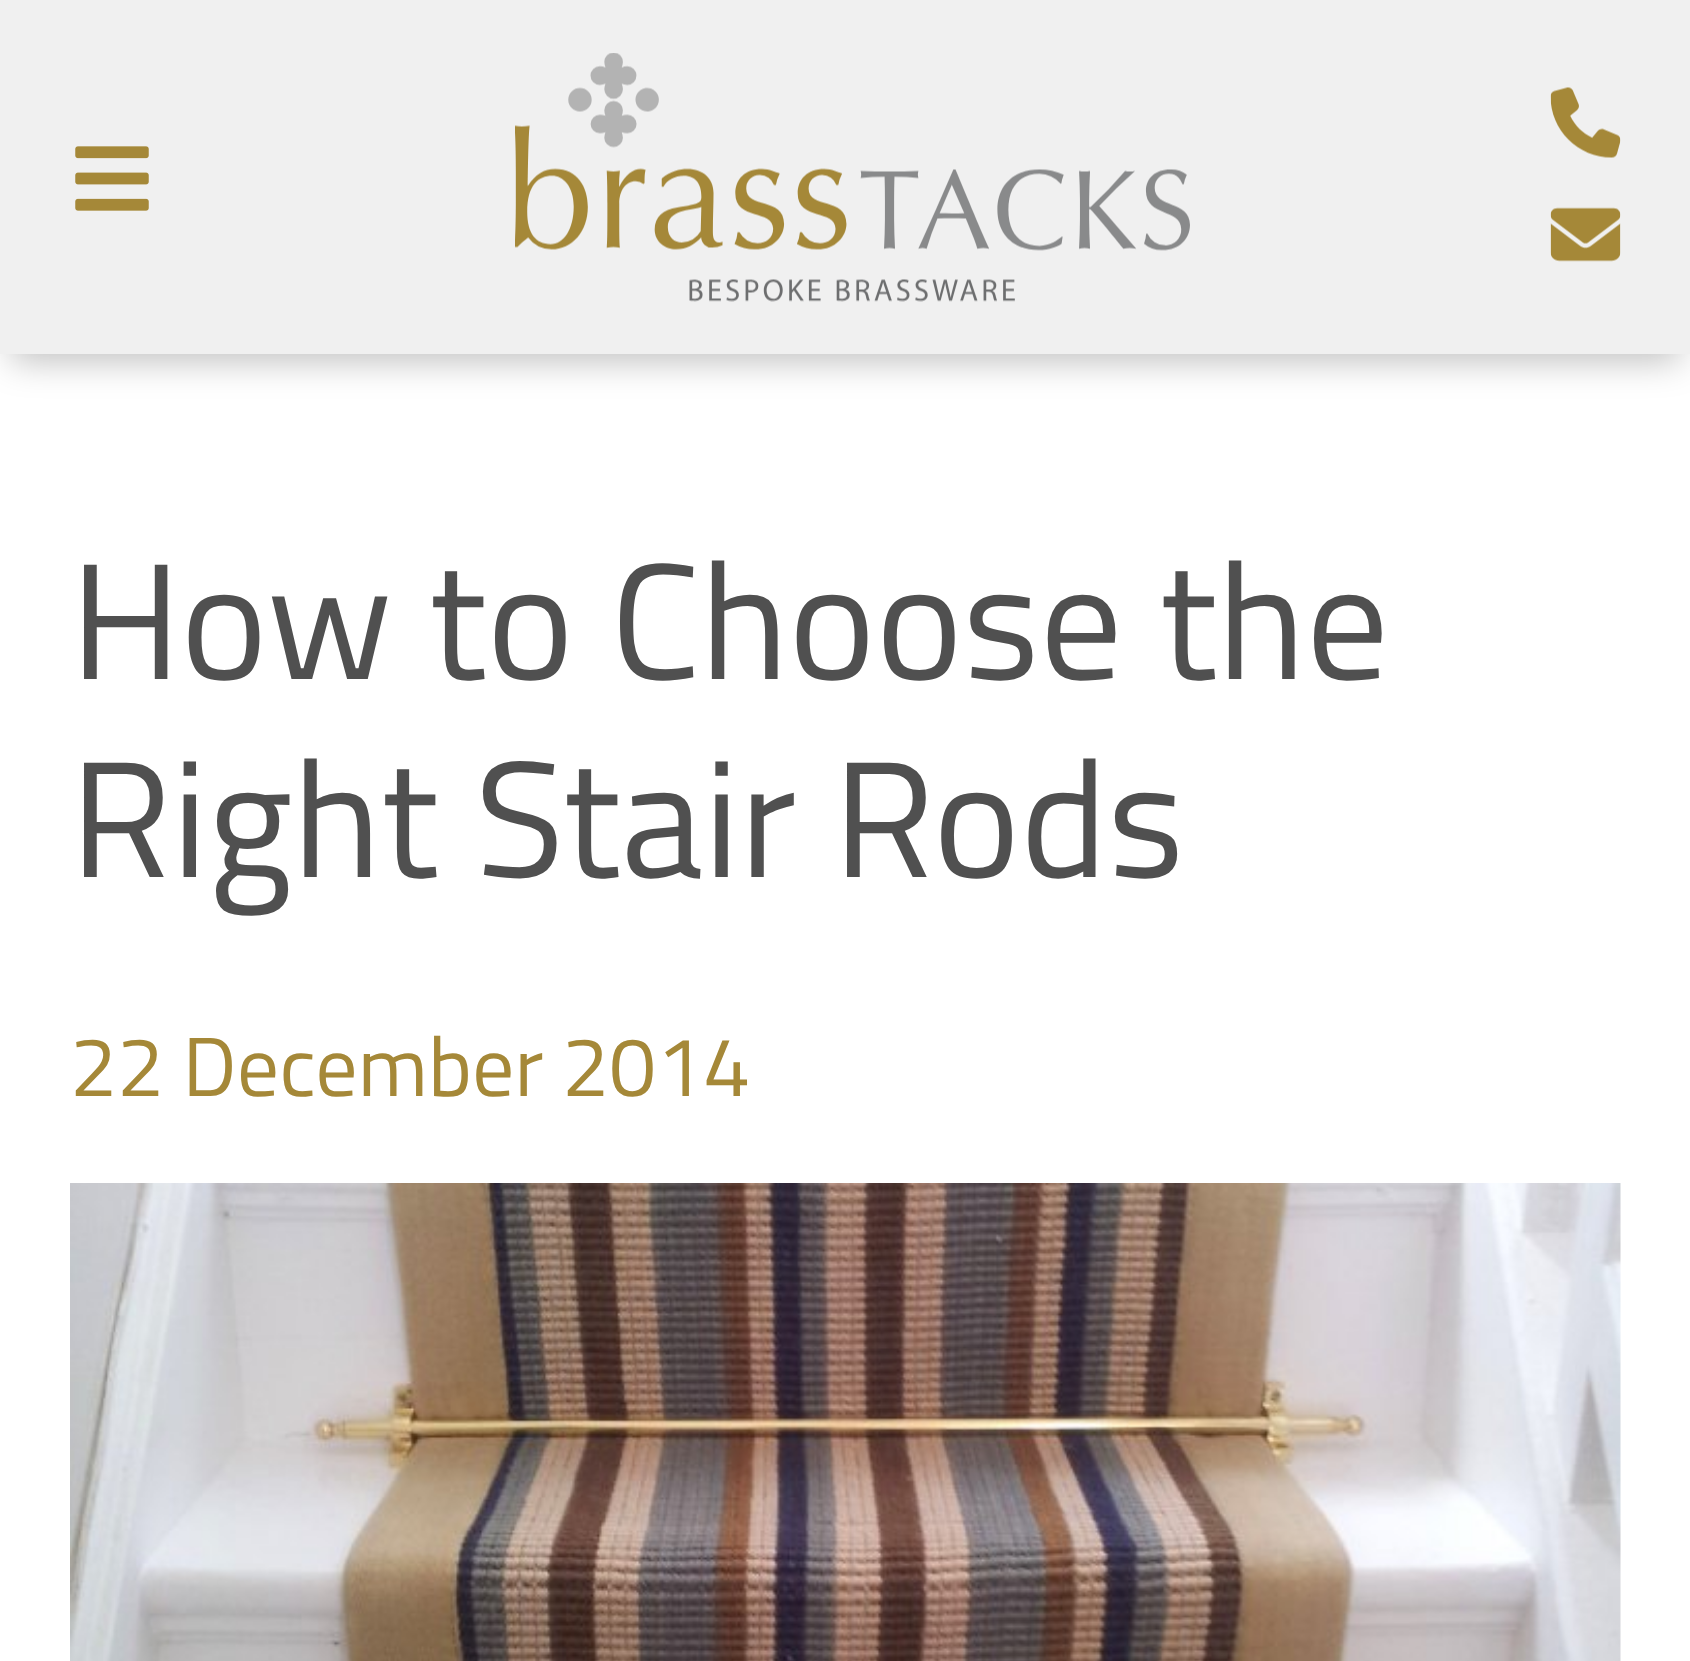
<svg xmlns="http://www.w3.org/2000/svg" width="1690" height="1661" viewBox="0 0 1690 1661">
  <rect width="100%" height="100%" fill="rgb(255,255,255)"/>
  <rect x="11" y="28" width="1669" height="333" fill="rgba(0,0,0,0.25)" filter="blur(17.5px)"/>
  <rect x="0" y="0" width="1690" height="354" fill="rgb(240,240,240)"/>
  <image x="75" y="146" width="74" height="65" href="pic1.png"/>
  <image x="515" y="53" width="675" height="249" href="pic2.png"/>
  <image x="1550" y="87" width="71" height="71" href="pic3.png"/>
  <image x="1550" y="207" width="71" height="55" href="pic4.png"/>
  <g font-family="Titillium Web" font-size="165" fill="rgb(80,80,80)">
    <text>
      <tspan x="70" y="679">How to Choose the</tspan>
      <tspan x="70" y="877">Right Stair Rods</tspan>
    </text>
  </g>
  <text x="70" y="1096" font-family="Titillium Web" font-size="84" fill="rgb(165,136,56)">22 December 2014</text>
  <image x="70" y="1183" width="1551" height="478" href="pic5.png"/>
</svg>
